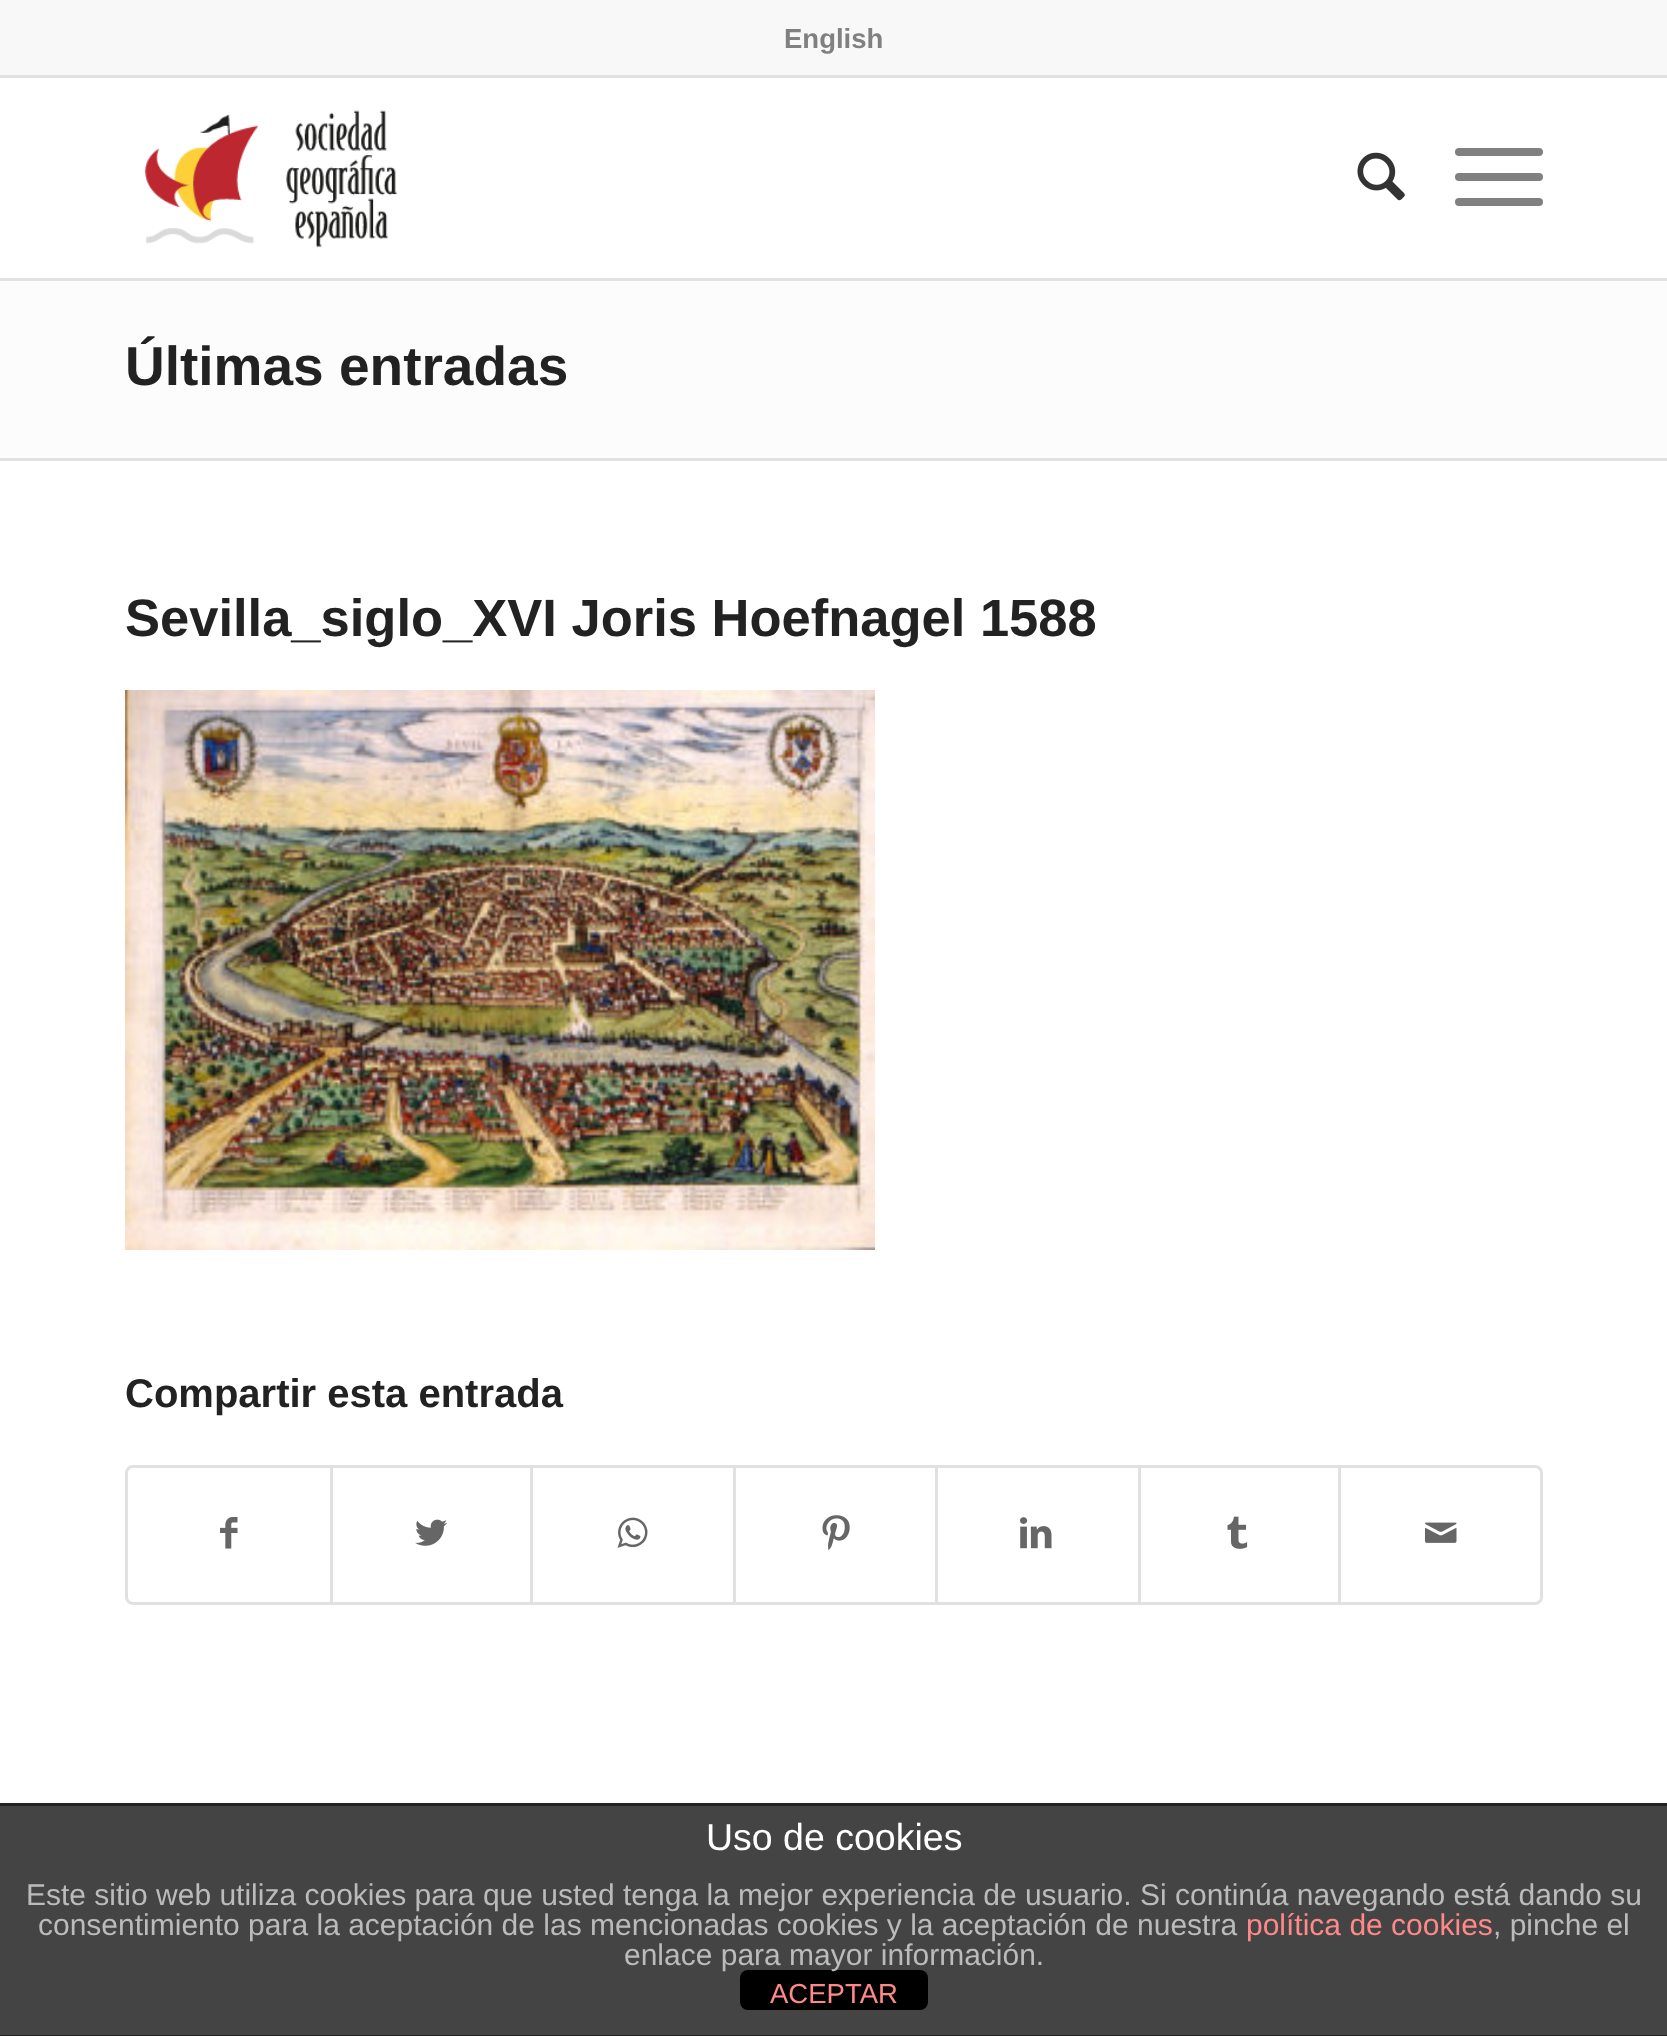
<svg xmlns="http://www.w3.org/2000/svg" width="1667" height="2036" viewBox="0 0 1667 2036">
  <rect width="100%" height="100%" fill="rgb(255,255,255)"/>
  <rect x="0" y="0" width="1667" height="75" fill="rgb(248,248,248)"/>
  <rect x="0" y="75" width="1667" height="3" fill="rgb(225,225,225)"/>
  <text x="784" y="48" font-family="Liberation Sans" font-size="27.5" font-weight="bold" fill="rgb(128,128,128)">English</text>
  <rect x="0" y="278" width="1667" height="3" fill="rgb(225,225,225)"/>
  <image x="144" y="110" width="253" height="138" href="pic1.png"/>
  <image x="1357" y="152" width="48" height="49" href="pic2.png"/>
  <rect x="1455" y="173" width="88" height="8" rx="4" fill="rgb(128,128,128)"/>
  <rect x="1455" y="148" width="88" height="8" rx="4" fill="rgb(128,128,128)"/>
  <rect x="1455" y="198" width="88" height="8" rx="4" fill="rgb(128,128,128)"/>
  <rect x="0" y="281" width="1667" height="177" fill="rgb(252,252,252)"/>
  <text x="125" y="385" font-family="Liberation Sans" font-size="55" font-weight="bold" fill="rgb(34,34,34)">Últimas entradas</text>
  <rect x="0" y="458" width="1667" height="3" fill="rgb(225,225,225)"/>
  <text x="125" y="636" font-family="Liberation Sans" font-size="52.5" font-weight="bold" fill="rgb(34,34,34)">Sevilla_siglo_XVI Joris Hoefnagel 1588</text>
  <image x="125" y="690" width="750" height="560" href="pic3.png"/>
  <text x="125" y="1407" font-family="Liberation Sans" font-size="40" font-weight="bold" fill="rgb(34,34,34)">Compartir esta entrada</text>
  <rect x="126.5" y="1466.5" width="1415" height="137" rx="6.5" fill="none" stroke="rgb(225,225,225)" stroke-width="3"/>
  <image x="220" y="1517" width="18" height="32" href="pic4.png"/>
  <rect x="330" y="1468" width="3" height="135" fill="rgb(225,225,225)"/>
  <image x="415" y="1519" width="32" height="27" href="pic5.png"/>
  <rect x="530" y="1468" width="3" height="135" fill="rgb(225,225,225)"/>
  <image x="617" y="1517" width="31" height="31" href="pic6.png"/>
  <rect x="733" y="1468" width="3" height="135" fill="rgb(225,225,225)"/>
  <image x="822" y="1515" width="28" height="36" href="pic7.png"/>
  <rect x="935" y="1468" width="3" height="135" fill="rgb(225,225,225)"/>
  <image x="1020" y="1517" width="32" height="32" href="pic8.png"/>
  <rect x="1138" y="1468" width="3" height="135" fill="rgb(225,225,225)"/>
  <image x="1227" y="1516" width="21" height="33" href="pic9.png"/>
  <rect x="1338" y="1468" width="3" height="135" fill="rgb(225,225,225)"/>
  <image x="1425" y="1522" width="32" height="21" href="pic10.png"/>
  <rect x="0" y="1806" width="1667" height="229" fill="rgb(68,68,68)"/>
  <rect x="0" y="1803" width="1667" height="3" fill="rgb(34,34,34)"/>
  <rect x="0" y="2035" width="1667" height="1" fill="rgb(34,34,34)"/>
  <text x="706" y="1850" font-family="Liberation Sans" font-size="37.5" fill="rgb(255,255,255)">Uso de cookies</text>
  <g font-family="Liberation Sans" font-size="30" fill="rgb(187,187,187)">
    <text x="26" y="1905">Este sitio web utiliza cookies para que usted tenga la mejor experiencia de usuario. Si continúa navegando está dando su</text>
    <text x="38" y="1935">consentimiento para la aceptación de las mencionadas cookies y la aceptación de nuestra</text>
  </g>
  <text x="1246" y="1935" font-family="Liberation Sans" font-size="30" fill="rgb(255,136,136)">política de cookies</text>
  <text x="1493" y="1935" font-family="Liberation Sans" font-size="30" fill="rgb(187,187,187)">, pinche el</text>
  <rect x="740" y="1970" width="188" height="40" rx="8" fill="rgb(0,0,0)"/>
  <text x="624" y="1965" font-family="Liberation Sans" font-size="30" fill="rgb(187,187,187)">enlace para mayor información.</text>
  <text x="770" y="2003" font-family="Liberation Sans" font-size="27.5" fill="rgb(255,136,136)">ACEPTAR</text>
</svg>
